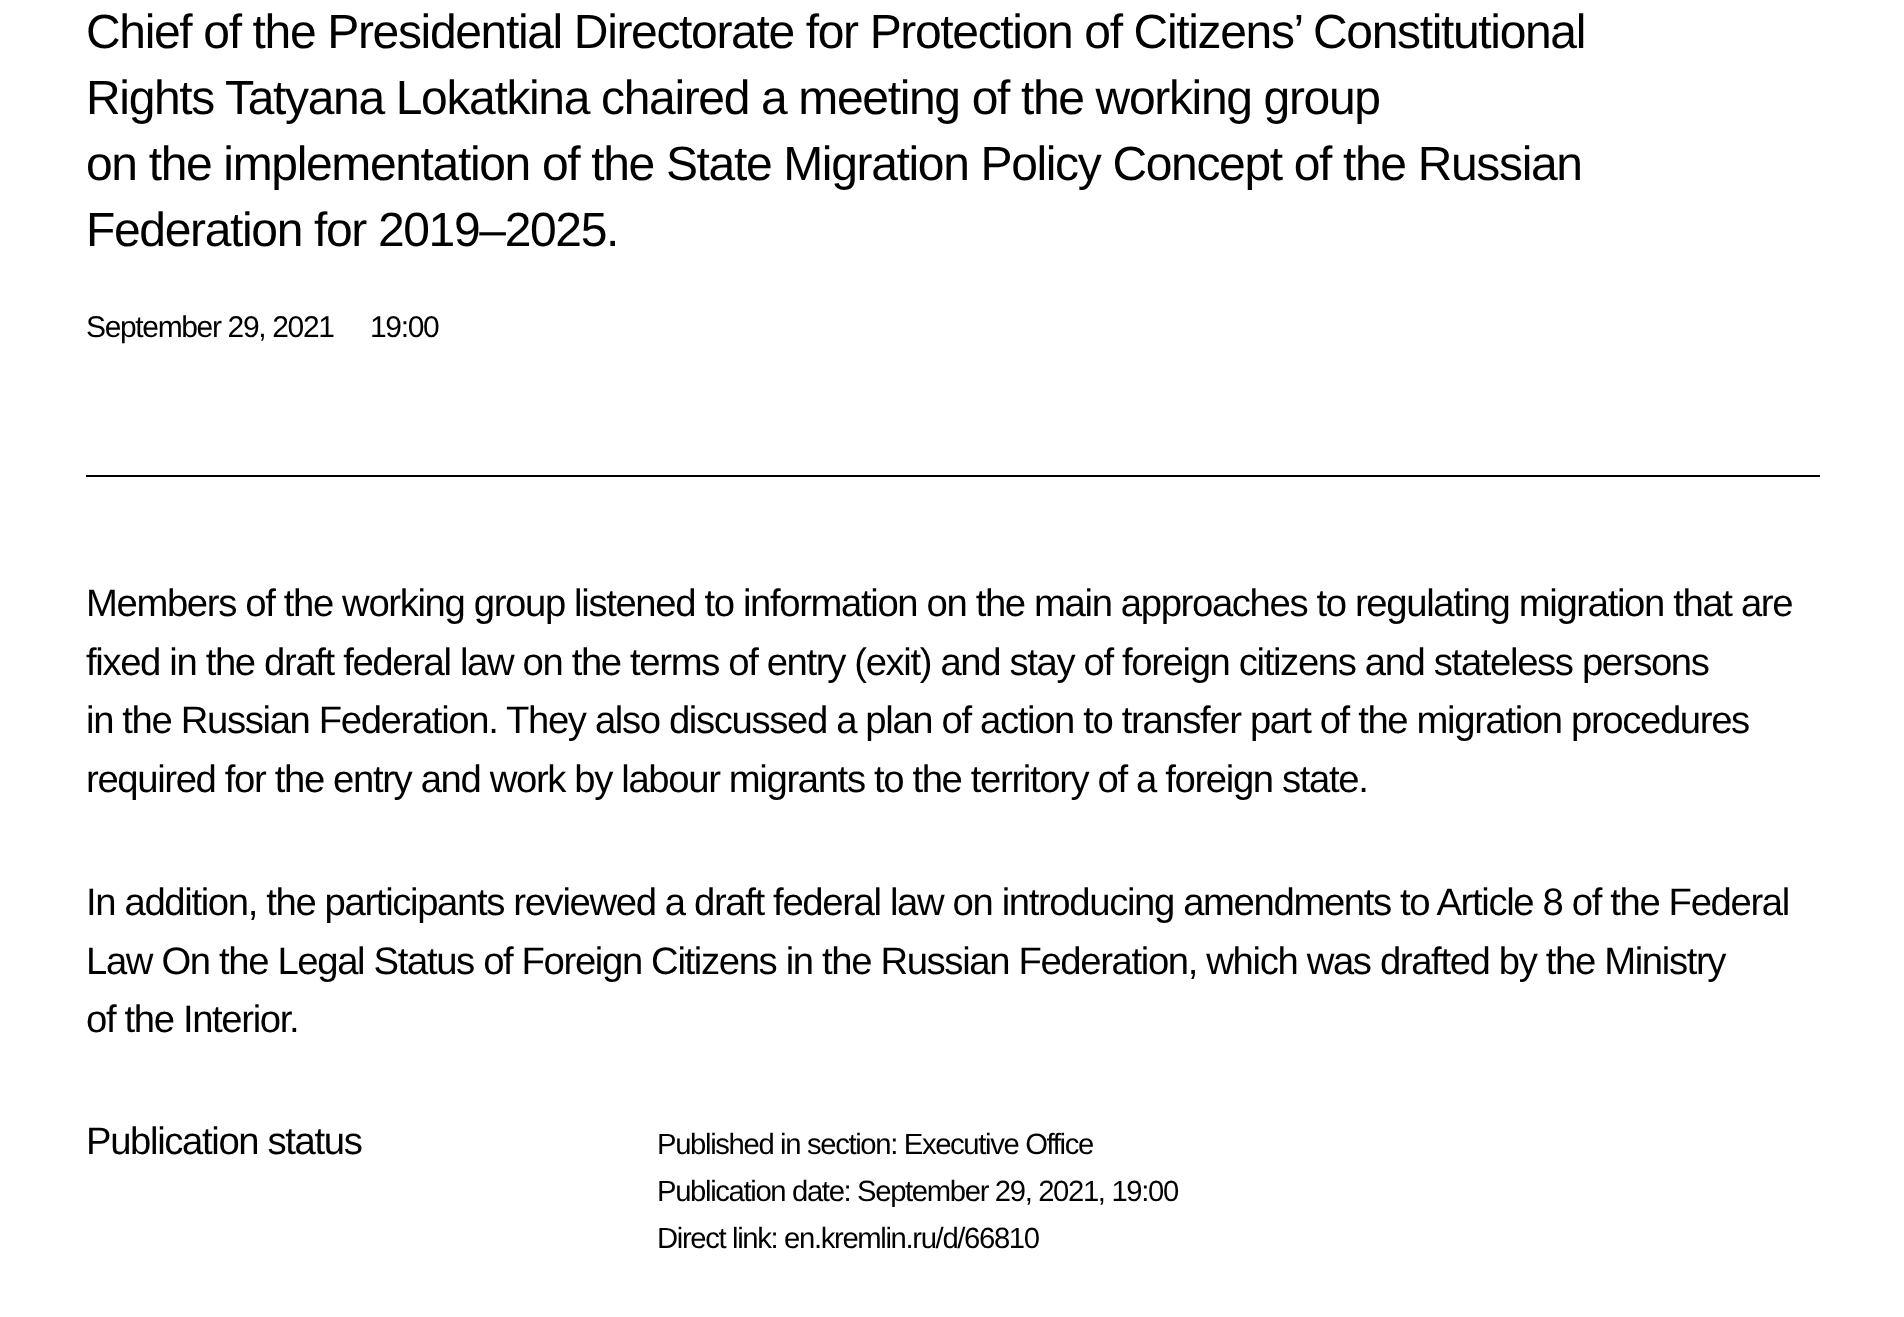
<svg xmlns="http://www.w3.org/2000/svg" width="1904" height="1317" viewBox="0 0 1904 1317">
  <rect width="100%" height="100%" fill="rgb(255,255,255)"/>
  <rect x="86" y="475" width="1734" height="2" fill="rgb(0,0,0)"/>
  <g font-family="Liberation Sans" font-size="48" letter-spacing="-1.35" fill="rgb(0,0,0)">
    <text>
      <tspan x="86" y="48">Chief of the Presidential Directorate for Protection of Citizens’ Constitutional</tspan>
      <tspan x="86" y="114">Rights Tatyana Lokatkina chaired a meeting of the working group</tspan>
      <tspan x="86" y="180">on the implementation of the State Migration Policy Concept of the Russian</tspan>
      <tspan x="86" y="246">Federation for 2019–2025.</tspan>
    </text>
  </g>
  <g font-family="Liberation Sans" font-size="30" letter-spacing="-1.35" fill="rgb(0,0,0)">
    <text x="86" y="337">September 29, 2021</text>
    <text x="370" y="337">19:00</text>
  </g>
  <g font-family="Liberation Sans" font-size="38.25" letter-spacing="-1.35" fill="rgb(0,0,0)">
    <text>
      <tspan x="86" y="616">Members of the working group listened to information on the main approaches to regulating migration that are</tspan>
      <tspan x="86" y="675">fixed in the draft federal law on the terms of entry (exit) and stay of foreign citizens and stateless persons</tspan>
      <tspan x="86" y="733">in the Russian Federation. They also discussed a plan of action to transfer part of the migration procedures</tspan>
      <tspan x="86" y="792">required for the entry and work by labour migrants to the territory of a foreign state.</tspan>
    </text>
    <text>
      <tspan x="86" y="915">In addition, the participants reviewed a draft federal law on introducing amendments to Article 8 of the Federal</tspan>
      <tspan x="86" y="974">Law On the Legal Status of Foreign Citizens in the Russian Federation, which was drafted by the Ministry</tspan>
      <tspan x="86" y="1032">of the Interior.</tspan>
    </text>
    <text x="86" y="1154">Publication status</text>
  </g>
  <g font-family="Liberation Sans" font-size="29.25" letter-spacing="-1.35" fill="rgb(0,0,0)">
    <text>
      <tspan x="657" y="1154">Published in section: Executive Office</tspan>
      <tspan x="657" y="1201">Publication date: September 29, 2021, 19:00</tspan>
      <tspan x="657" y="1248">Direct link: en.kremlin.ru/d/66810</tspan>
    </text>
  </g>
</svg>
